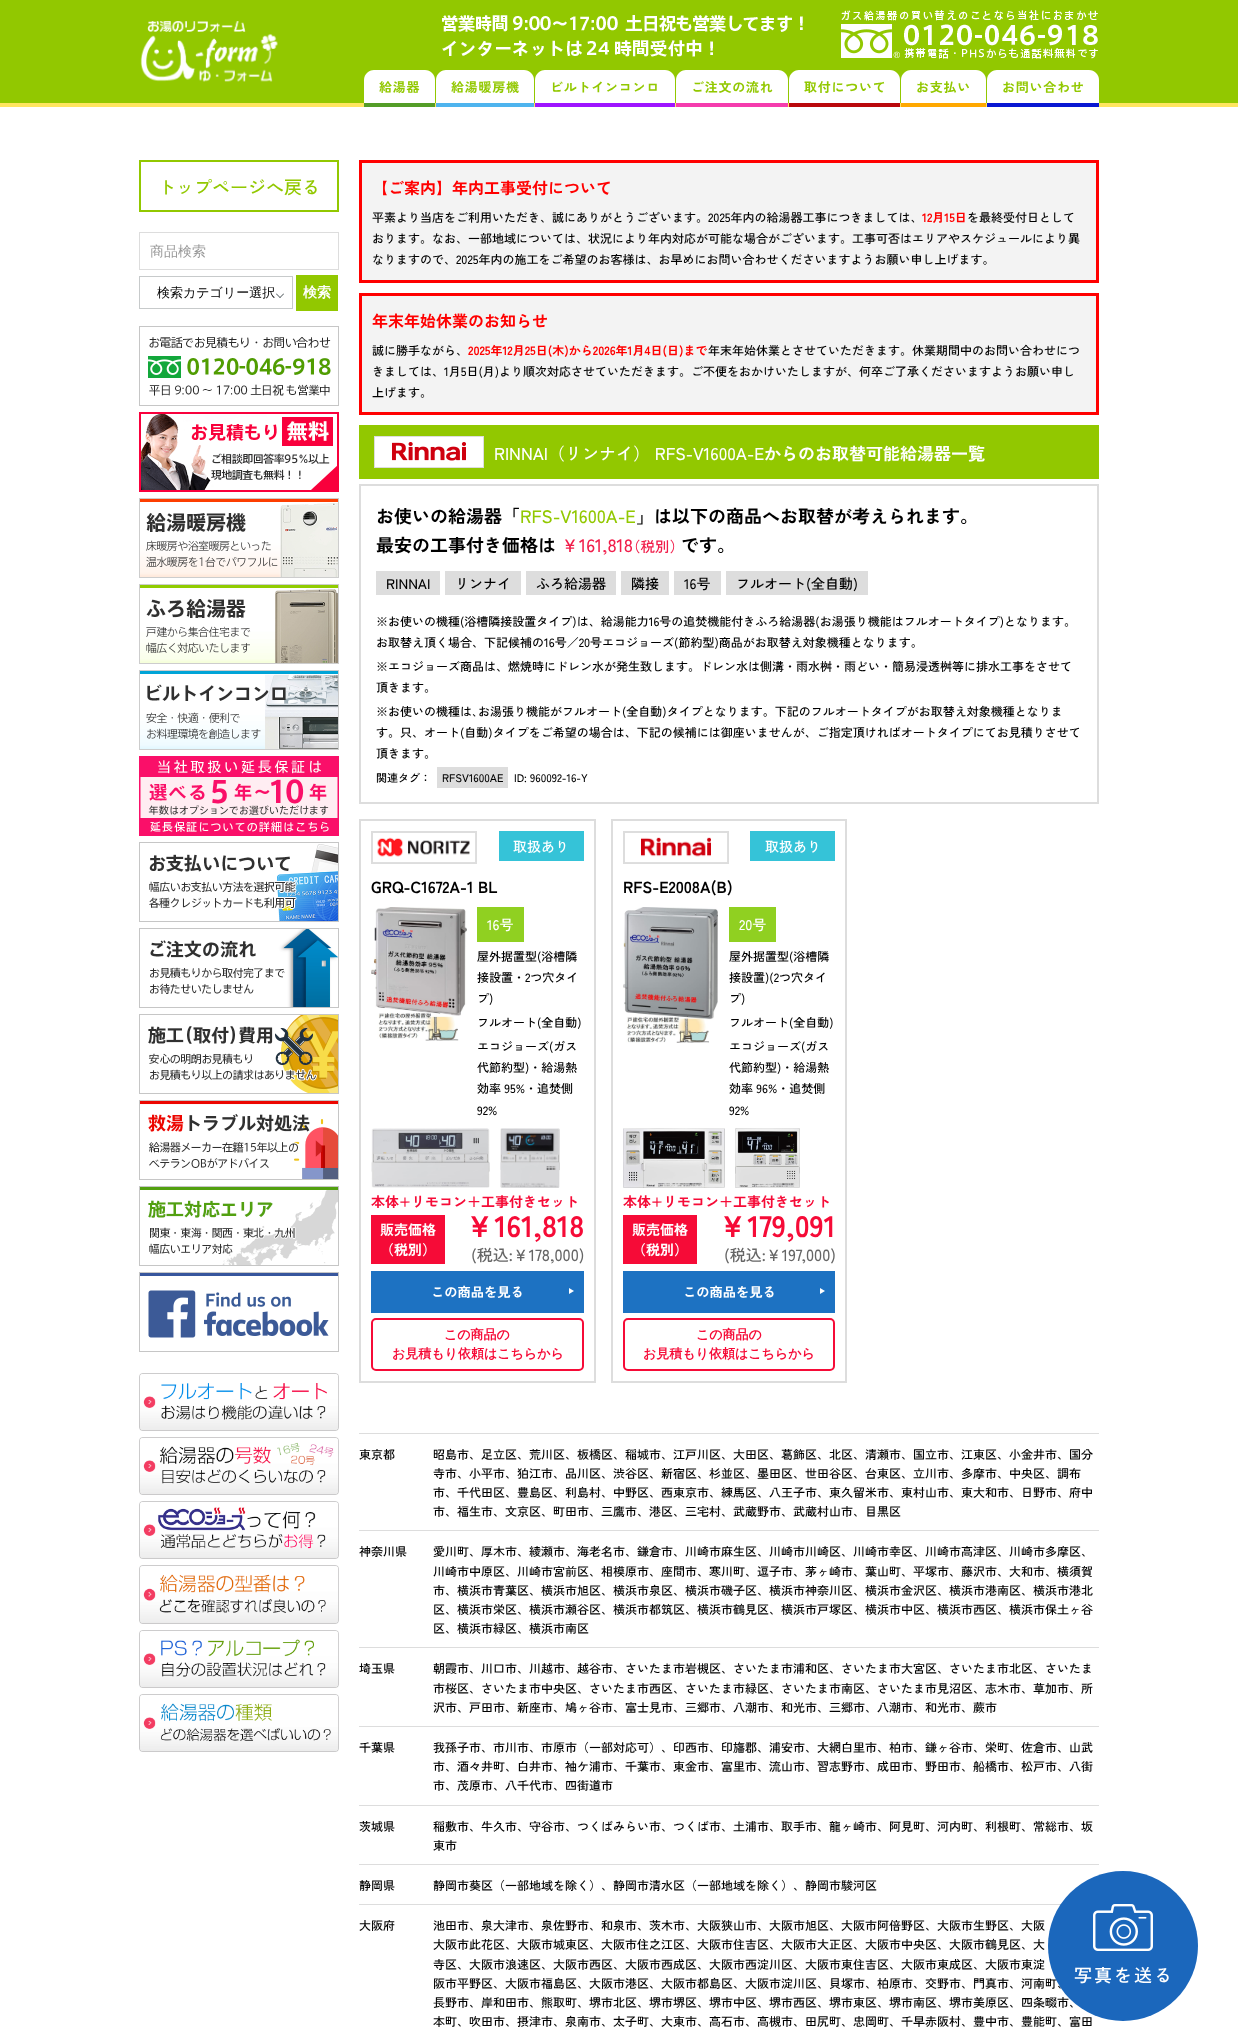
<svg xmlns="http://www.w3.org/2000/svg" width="1238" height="2041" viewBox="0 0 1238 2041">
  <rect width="100%" height="100%" fill="rgb(255,255,255)"/>
  <rect x="0" y="0" width="1238" height="103" fill="rgb(146,200,0)"/>
  <rect x="0" y="103" width="1238" height="4" fill="rgb(255,229,95)"/>
  <image x="841" y="10" width="257" height="49" href="pic1.png"/>
  <image x="140" y="21" width="138" height="61" href="pic2.png"/>
  <image x="442" y="15" width="361" height="42" href="pic3.png"/>
  <path d="M374 70H425C430.5 70 435 74.5 435 80V107H364V80C364 74.5 368.5 70 374 70Z" fill="rgb(255,255,255)"/>
  <rect x="364" y="103" width="71" height="4" fill="rgb(84,157,39)"/>
  <text x="379" y="92" font-family="Zen Kaku Gothic New" font-size="13" font-weight="bold" letter-spacing="0.75" fill="rgb(146,200,0)">給湯器</text>
  <path d="M446 70H524C529.5 70 534 74.5 534 80V107H436V80C436 74.5 440.5 70 446 70Z" fill="rgb(255,255,255)"/>
  <rect x="436" y="103" width="98" height="4" fill="rgb(78,180,238)"/>
  <text x="451" y="92" font-family="Zen Kaku Gothic New" font-size="13" font-weight="bold" letter-spacing="0.75" fill="rgb(146,200,0)">給湯暖房機</text>
  <path d="M545 70H665C670.5 70 675 74.5 675 80V107H535V80C535 74.5 539.5 70 545 70Z" fill="rgb(255,255,255)"/>
  <rect x="535" y="103" width="140" height="4" fill="rgb(158,20,255)"/>
  <text x="550" y="92" font-family="Zen Kaku Gothic New" font-size="13" font-weight="bold" letter-spacing="0.75" fill="rgb(146,200,0)">ビルトインコンロ</text>
  <path d="M686 70H778C783.5 70 788 74.5 788 80V107H676V80C676 74.5 680.5 70 686 70Z" fill="rgb(255,255,255)"/>
  <rect x="676" y="103" width="112" height="4" fill="rgb(245,60,173)"/>
  <text x="691" y="92" font-family="Zen Kaku Gothic New" font-size="13" font-weight="bold" letter-spacing="0.75" fill="rgb(146,200,0)">ご注文の流れ</text>
  <path d="M799 70H890C895.5 70 900 74.5 900 80V107H789V80C789 74.5 793.5 70 799 70Z" fill="rgb(255,255,255)"/>
  <rect x="789" y="103" width="111" height="4" fill="rgb(186,8,12)"/>
  <text x="804" y="92" font-family="Zen Kaku Gothic New" font-size="13" font-weight="bold" letter-spacing="0.75" fill="rgb(146,200,0)">取付について</text>
  <path d="M911 70H976C981.5 70 986 74.5 986 80V107H901V80C901 74.5 905.5 70 911 70Z" fill="rgb(255,255,255)"/>
  <rect x="901" y="103" width="85" height="4" fill="rgb(255,168,0)"/>
  <text x="916" y="92" font-family="Zen Kaku Gothic New" font-size="13" font-weight="bold" letter-spacing="0.75" fill="rgb(146,200,0)">お支払い</text>
  <path d="M997 70H1089C1094.5 70 1099 74.5 1099 80V107H987V80C987 74.5 991.5 70 997 70Z" fill="rgb(255,255,255)"/>
  <rect x="987" y="103" width="112" height="4" fill="rgb(9,23,210)"/>
  <text x="1002" y="92" font-family="Zen Kaku Gothic New" font-size="13" font-weight="bold" letter-spacing="0.75" fill="rgb(146,200,0)">お問い合わせ</text>
  <rect x="140" y="161" width="198" height="50" fill="none" stroke="rgb(146,200,0)" stroke-width="2"/>
  <text x="158" y="194" font-family="Zen Kaku Gothic New" font-size="18" font-weight="500" fill="rgb(146,200,0)">トップページへ戻る</text>
  <rect x="139.5" y="232.5" width="199" height="37" fill="none" stroke="rgb(221,221,221)"/>
  <text x="150" y="256" font-family="WenQuanYi Zen Hei" font-size="14" font-weight="500" fill="rgb(153,153,153)">商品検索</text>
  <path d="M279.5 297.5L283.5 293.5L284 294L280 298Z" fill="rgb(69,78,82)"/>
  <path d="M276 294L276.5 293.5L280.5 297.5L280 298Z" fill="rgb(69,78,82)"/>
  <rect x="139.5" y="276.5" width="153" height="32" fill="none" stroke="rgb(199,202,203)"/>
  <text x="157" y="297" font-family="WenQuanYi Zen Hei" font-size="13" font-weight="500" fill="rgb(0,0,0)">検索カテゴリー選択</text>
  <rect x="296" y="275" width="42" height="36" fill="rgb(146,200,0)"/>
  <text x="303" y="297" font-family="WenQuanYi Zen Hei" font-size="14" font-weight="bold" fill="rgb(255,255,255)">検索</text>
  <image x="139" y="326" width="200" height="80" href="pic4.png"/>
  <image x="139" y="412" width="200" height="80" href="pic5.png"/>
  <image x="139" y="498" width="200" height="80" href="pic6.png"/>
  <image x="139" y="584" width="200" height="80" href="pic7.png"/>
  <image x="139" y="670" width="200" height="80" href="pic8.png"/>
  <image x="139" y="756" width="200" height="80" href="pic9.png"/>
  <image x="139" y="842" width="200" height="80" href="pic10.png"/>
  <image x="139" y="928" width="200" height="80" href="pic11.png"/>
  <image x="139" y="1014" width="200" height="80" href="pic12.png"/>
  <image x="139" y="1100" width="200" height="80" href="pic13.png"/>
  <image x="139" y="1186" width="200" height="80" href="pic14.png"/>
  <image x="139" y="1272" width="200" height="80" href="pic15.png"/>
  <image x="139" y="1373" width="200" height="58" href="pic16.png"/>
  <image x="139" y="1437" width="200" height="58" href="pic17.png"/>
  <image x="139" y="1501" width="200" height="58" href="pic18.png"/>
  <image x="139" y="1565" width="200" height="59" href="pic19.png"/>
  <image x="139" y="1630" width="200" height="58" href="pic20.png"/>
  <image x="139" y="1694" width="200" height="58" href="pic21.png"/>
  <rect x="360.5" y="161.5" width="737" height="120" fill="rgb(243,243,243)" stroke="rgb(255,0,0)" stroke-width="3"/>
  <text x="372" y="194" font-family="Zen Kaku Gothic New" font-size="16" font-weight="bold" fill="rgb(255,0,0)">【ご案内】年内工事受付について</text>
  <text x="372" y="222" font-family="Zen Kaku Gothic New" font-size="12" font-weight="500" fill="rgb(0,0,0)">平素より当店をご利用いただき、誠にありがとうございます。2025年内の給湯器工事につきましては、</text>
  <text x="922" y="222" font-family="Zen Kaku Gothic New" font-size="12" font-weight="bold" fill="rgb(255,0,0)">12月15日</text>
  <g font-family="Zen Kaku Gothic New" font-size="12" font-weight="500" fill="rgb(0,0,0)">
    <text x="967" y="222">を最終受付日として</text>
    <text>
      <tspan x="372" y="243">おります。なお、一部地域については、状況により年内対応が可能な場合がございます。工事可否はエリアやスケジュールにより異</tspan>
      <tspan x="372" y="264">なりますので、2025年内の施工をご希望のお客様は、お早めにお問い合わせくださいますようお願い申し上げます。</tspan>
    </text>
  </g>
  <rect x="360.5" y="294.5" width="737" height="119" fill="rgb(243,243,243)" stroke="rgb(255,0,0)" stroke-width="3"/>
  <text x="372" y="327" font-family="Zen Kaku Gothic New" font-size="16" font-weight="bold" fill="rgb(255,0,0)">年末年始休業のお知らせ</text>
  <text x="372" y="355" font-family="Zen Kaku Gothic New" font-size="12" font-weight="500" fill="rgb(0,0,0)">誠に勝手ながら、</text>
  <text x="468" y="355" font-family="Zen Kaku Gothic New" font-size="12" font-weight="bold" fill="rgb(255,0,0)">2025年12月25日(木)から2026年1月4日(日)まで</text>
  <g font-family="Zen Kaku Gothic New" font-size="12" font-weight="500" fill="rgb(0,0,0)">
    <text x="708" y="355">年末年始休業とさせていただきます。休業期間中のお問い合わせにつ</text>
    <text>
      <tspan x="372" y="376">きましては、1月5日(月)より順次対応させていただきます。ご不便をおかけいたしますが、何卒ご了承くださいますようお願い申し</tspan>
      <tspan x="372" y="397">上げます。</tspan>
    </text>
  </g>
  <rect x="359" y="425" width="740" height="54" fill="rgb(146,200,0)"/>
  <image x="374" y="436" width="110" height="32" href="pic22.png"/>
  <text x="494" y="460" font-family="Zen Kaku Gothic New" font-size="17" font-weight="500" fill="rgb(255,255,255)">RINNAI（リンナイ） RFS-V1600A-E</text>
  <text x="764" y="460" font-family="Zen Kaku Gothic New" font-size="17" font-weight="bold" fill="rgb(255,255,255)">からのお取替可能給湯器一覧</text>
  <rect x="360" y="485" width="738" height="318" fill="none" stroke="rgb(221,221,221)" stroke-width="2"/>
  <text x="376" y="523" font-family="Zen Kaku Gothic New" font-size="18" font-weight="bold" fill="rgb(0,0,0)">お使いの給湯器「</text>
  <text x="520" y="523" font-family="Zen Kaku Gothic New" font-size="18" font-weight="500" fill="rgb(146,200,0)">RFS-V1600A-E</text>
  <g font-family="Zen Kaku Gothic New" font-size="18" font-weight="bold" fill="rgb(0,0,0)">
    <text x="636" y="523">」は以下の商品へお取替が考えられます。</text>
    <text x="376" y="552">最安の工事付き価格は</text>
  </g>
  <text x="561" y="552" font-family="Zen Kaku Gothic New" font-size="18" font-weight="500" fill="rgb(241,29,74)">￥161,818</text>
  <text x="626" y="552" font-family="Zen Kaku Gothic New" font-size="14.5" font-weight="500" fill="rgb(241,29,74)">（税別）</text>
  <text x="681" y="552" font-family="Zen Kaku Gothic New" font-size="18" font-weight="bold" fill="rgb(0,0,0)">です。</text>
  <rect x="376" y="571" width="64" height="24" fill="rgb(221,221,221)"/>
  <text x="386" y="589" font-family="Zen Kaku Gothic New" font-size="14" font-weight="500" fill="rgb(0,0,0)">RINNAI</text>
  <rect x="445" y="571" width="76" height="24" fill="rgb(221,221,221)"/>
  <text x="455" y="589" font-family="Zen Kaku Gothic New" font-size="14" font-weight="500" fill="rgb(0,0,0)">リンナイ</text>
  <rect x="526" y="571" width="90" height="24" fill="rgb(221,221,221)"/>
  <text x="536" y="589" font-family="Zen Kaku Gothic New" font-size="14" font-weight="500" fill="rgb(0,0,0)">ふろ給湯器</text>
  <rect x="621" y="571" width="48" height="24" fill="rgb(221,221,221)"/>
  <text x="631" y="589" font-family="Zen Kaku Gothic New" font-size="14" font-weight="500" fill="rgb(0,0,0)">隣接</text>
  <rect x="674" y="571" width="47" height="24" fill="rgb(221,221,221)"/>
  <text x="684" y="589" font-family="Zen Kaku Gothic New" font-size="14" font-weight="500" fill="rgb(0,0,0)">16号</text>
  <rect x="726" y="571" width="142" height="24" fill="rgb(221,221,221)"/>
  <text x="736" y="589" font-family="Zen Kaku Gothic New" font-size="14" font-weight="500" fill="rgb(0,0,0)">フルオート(全自動)</text>
  <g font-family="Zen Kaku Gothic New" font-size="12" font-weight="500" fill="rgb(0,0,0)">
    <text>
      <tspan x="376" y="626">※お使いの機種(浴槽隣接設置タイプ)は、給湯能力16号の追焚機能付きふろ給湯器(お湯張り機能はフルオートタイプ)となります。</tspan>
      <tspan x="376" y="647">お取替え頂く場合、下記候補の16号／20号エコジョーズ(節約型)商品がお取替え対象機種となります。</tspan>
    </text>
    <text>
      <tspan x="376" y="671">※エコジョーズ商品は、燃焼時にドレン水が発生致します。ドレン水は側溝・雨水桝・雨どい・簡易浸透桝等に排水工事をさせて</tspan>
      <tspan x="376" y="692">頂きます。</tspan>
    </text>
    <text>
      <tspan x="376" y="716">※お使いの機種は､お湯張り機能がフルオート(全自動)タイプとなります。下記のフルオートタイプがお取替え対象機種となりま</tspan>
      <tspan x="376" y="737">す。只、オート(自動)タイプをご希望の場合は、下記の候補には御座いませんが、ご指定頂ければオートタイプにてお見積りさせて</tspan>
      <tspan x="376" y="758">頂きます。</tspan>
    </text>
  </g>
  <text x="376" y="782" font-family="Zen Kaku Gothic New" font-size="11" font-weight="500" fill="rgb(0,0,0)">関連タグ：</text>
  <rect x="437" y="767" width="71" height="21" fill="rgb(221,221,221)"/>
  <g font-family="Zen Kaku Gothic New" font-size="11" font-weight="500" fill="rgb(0,0,0)">
    <text x="442" y="782">RFSV1600AE</text>
    <text x="514" y="782">ID: 960092-16-Y</text>
  </g>
  <rect x="360" y="820" width="235" height="562" fill="none" stroke="rgb(221,221,221)" stroke-width="2"/>
  <rect x="371.5" y="831.5" width="105" height="32" fill="none" stroke="rgb(221,221,221)"/>
  <image x="372" y="832" width="104" height="31" href="pic23.png"/>
  <rect x="499" y="831" width="85" height="30" fill="rgb(53,195,216)"/>
  <text x="513" y="852" font-family="Zen Kaku Gothic New" font-size="14" font-weight="500" fill="rgb(255,255,255)">取扱あり</text>
  <text x="371" y="893" font-family="Zen Kaku Gothic New" font-size="16" font-weight="bold" fill="rgb(0,0,0)">GRQ-C1672A-1 BL</text>
  <image x="371" y="907" width="96" height="134" href="pic24.png"/>
  <rect x="477" y="907" width="47" height="35" fill="rgb(144,208,33)"/>
  <text x="487" y="930" font-family="Zen Kaku Gothic New" font-size="14" font-weight="500" fill="rgb(255,255,255)">16号</text>
  <g font-family="Zen Kaku Gothic New" font-size="12" font-weight="500" fill="rgb(0,0,0)">
    <text>
      <tspan x="477" y="961">屋外据置型(浴槽隣</tspan>
      <tspan x="477" y="982">接設置・2つ穴タイ</tspan>
      <tspan x="477" y="1003">プ)</tspan>
    </text>
    <text x="477" y="1027">フルオート(全自動)</text>
    <text>
      <tspan x="477" y="1051">エコジョーズ(ガス</tspan>
      <tspan x="477" y="1072">代節約型)・給湯熱</tspan>
      <tspan x="477" y="1093">効率 95%・追焚側</tspan>
      <tspan x="477" y="1115">92%</tspan>
    </text>
  </g>
  <image x="371" y="1128" width="119" height="60" href="pic25.png"/>
  <image x="500" y="1128" width="60" height="60" href="pic26.png"/>
  <text x="371" y="1207" font-family="Zen Kaku Gothic New" font-size="14" font-weight="bold" fill="rgb(246,11,55)">本体+リモコン＋工事付きセット</text>
  <rect x="371" y="1215" width="74" height="49" fill="rgb(246,11,55)"/>
  <g font-family="Zen Kaku Gothic New" font-size="14" font-weight="bold" fill="rgb(255,255,255)">
    <text>
      <tspan x="380" y="1235">販売価格</tspan>
      <tspan x="380" y="1255">（税別）</tspan>
    </text>
  </g>
  <text x="465" y="1237" font-family="Zen Kaku Gothic New" font-size="29.5" font-weight="bold" fill="rgb(246,11,55)">￥161,818</text>
  <text x="471" y="1261" font-family="Zen Kaku Gothic New" font-size="16" font-weight="500" fill="rgb(102,102,102)">(税込:￥178,000)</text>
  <rect x="371" y="1271" width="213" height="42" fill="rgb(29,114,194)"/>
  <text x="431" y="1297" font-family="Zen Kaku Gothic New" font-size="13.25" font-weight="bold" fill="rgb(255,255,255)">この商品を見る</text>
  <path d="M569 1294V1288L574 1291Z" fill="rgb(255,255,255)"/>
  <rect x="372" y="1319" width="211" height="51" rx="4" fill="none" stroke="rgb(246,11,55)" stroke-width="2"/>
  <g font-family="WenQuanYi Zen Hei" font-size="13" font-weight="bold" fill="rgb(246,11,55)">
    <text x="444" y="1339">この商品の</text>
    <text x="392" y="1358">お見積もり依頼はこちらから</text>
  </g>
  <rect x="612" y="820" width="234" height="562" fill="none" stroke="rgb(221,221,221)" stroke-width="2"/>
  <rect x="623.5" y="831.5" width="105" height="32" fill="none" stroke="rgb(221,221,221)"/>
  <image x="624" y="832" width="104" height="31" href="pic27.png"/>
  <rect x="750" y="831" width="85" height="30" fill="rgb(53,195,216)"/>
  <text x="765" y="852" font-family="Zen Kaku Gothic New" font-size="14" font-weight="500" fill="rgb(255,255,255)">取扱あり</text>
  <text x="623" y="893" font-family="Zen Kaku Gothic New" font-size="16" font-weight="bold" fill="rgb(0,0,0)">RFS-E2008A(B)</text>
  <image x="623" y="907" width="95" height="136" href="pic28.png"/>
  <rect x="729" y="907" width="47" height="35" fill="rgb(144,208,33)"/>
  <text x="739" y="930" font-family="Zen Kaku Gothic New" font-size="14" font-weight="500" fill="rgb(255,255,255)">20号</text>
  <g font-family="Zen Kaku Gothic New" font-size="12" font-weight="500" fill="rgb(0,0,0)">
    <text>
      <tspan x="729" y="961">屋外据置型(浴槽隣</tspan>
      <tspan x="729" y="982">接設置)(2つ穴タイ</tspan>
      <tspan x="729" y="1003">プ)</tspan>
    </text>
    <text x="729" y="1027">フルオート(全自動)</text>
    <text>
      <tspan x="729" y="1051">エコジョーズ(ガス</tspan>
      <tspan x="729" y="1072">代節約型)・給湯熱</tspan>
      <tspan x="729" y="1093">効率 96%・追焚側</tspan>
      <tspan x="729" y="1115">92%</tspan>
    </text>
  </g>
  <image x="623" y="1128" width="102" height="60" href="pic29.png"/>
  <image x="735" y="1128" width="65" height="60" href="pic30.png"/>
  <text x="623" y="1207" font-family="Zen Kaku Gothic New" font-size="14" font-weight="bold" fill="rgb(246,11,55)">本体+リモコン＋工事付きセット</text>
  <rect x="623" y="1215" width="74" height="49" fill="rgb(246,11,55)"/>
  <g font-family="Zen Kaku Gothic New" font-size="14" font-weight="bold" fill="rgb(255,255,255)">
    <text>
      <tspan x="632" y="1235">販売価格</tspan>
      <tspan x="632" y="1255">（税別）</tspan>
    </text>
  </g>
  <text x="718" y="1237" font-family="Zen Kaku Gothic New" font-size="29.5" font-weight="bold" fill="rgb(246,11,55)">￥179,091</text>
  <text x="724" y="1261" font-family="Zen Kaku Gothic New" font-size="16" font-weight="500" fill="rgb(102,102,102)">(税込:￥197,000)</text>
  <rect x="623" y="1271" width="212" height="42" fill="rgb(29,114,194)"/>
  <text x="683" y="1297" font-family="Zen Kaku Gothic New" font-size="13.25" font-weight="bold" fill="rgb(255,255,255)">この商品を見る</text>
  <path d="M820 1294V1288L825 1291Z" fill="rgb(255,255,255)"/>
  <rect x="624" y="1319" width="210" height="51" rx="4" fill="none" stroke="rgb(246,11,55)" stroke-width="2"/>
  <g font-family="WenQuanYi Zen Hei" font-size="13" font-weight="bold" fill="rgb(246,11,55)">
    <text x="696" y="1339">この商品の</text>
    <text x="643" y="1358">お見積もり依頼はこちらから</text>
  </g>
  <rect x="359" y="1433" width="740" height="1" fill="rgb(221,221,221)"/>
  <g font-family="Zen Kaku Gothic New" font-size="12" font-weight="500" fill="rgb(0,0,0)">
    <text x="359" y="1459">東京都</text>
    <text>
      <tspan x="433" y="1459">昭島市、足立区、荒川区、板橋区、稲城市、江戸川区、大田区、葛飾区、北区、清瀬市、国立市、江東区、小金井市、国分</tspan>
      <tspan x="433" y="1478">寺市、小平市、狛江市、品川区、渋谷区、新宿区、杉並区、墨田区、世田谷区、台東区、立川市、多摩市、中央区、調布</tspan>
      <tspan x="433" y="1497">市、千代田区、豊島区、利島村、中野区、西東京市、練馬区、八王子市、東久留米市、東村山市、東大和市、日野市、府中</tspan>
      <tspan x="433" y="1516">市、福生市、文京区、町田市、三鷹市、港区、三宅村、武蔵野市、武蔵村山市、目黒区</tspan>
    </text>
  </g>
  <rect x="359" y="1530" width="740" height="1" fill="rgb(221,221,221)"/>
  <g font-family="Zen Kaku Gothic New" font-size="12" font-weight="500" fill="rgb(0,0,0)">
    <text x="359" y="1556">神奈川県</text>
    <text>
      <tspan x="433" y="1556">愛川町、厚木市、綾瀬市、海老名市、鎌倉市、川崎市麻生区、川崎市川崎区、川崎市幸区、川崎市高津区、川崎市多摩区、</tspan>
      <tspan x="433" y="1576">川崎市中原区、川崎市宮前区、相模原市、座間市、寒川町、逗子市、茅ヶ崎市、葉山町、平塚市、藤沢市、大和市、横須賀</tspan>
      <tspan x="433" y="1595">市、横浜市青葉区、横浜市旭区、横浜市泉区、横浜市磯子区、横浜市神奈川区、横浜市金沢区、横浜市港南区、横浜市港北</tspan>
      <tspan x="433" y="1614">区、横浜市栄区、横浜市瀬谷区、横浜市都筑区、横浜市鶴見区、横浜市戸塚区、横浜市中区、横浜市西区、横浜市保土ヶ谷</tspan>
      <tspan x="433" y="1633">区、横浜市緑区、横浜市南区</tspan>
    </text>
  </g>
  <rect x="359" y="1647" width="740" height="1" fill="rgb(221,221,221)"/>
  <g font-family="Zen Kaku Gothic New" font-size="12" font-weight="500" fill="rgb(0,0,0)">
    <text x="359" y="1673">埼玉県</text>
    <text>
      <tspan x="433" y="1673">朝霞市、川口市、川越市、越谷市、さいたま市岩槻区、さいたま市浦和区、さいたま市大宮区、さいたま市北区、さいたま</tspan>
      <tspan x="433" y="1693">市桜区、さいたま市中央区、さいたま市西区、さいたま市緑区、さいたま市南区、さいたま市見沼区、志木市、草加市、所</tspan>
      <tspan x="433" y="1712">沢市、戸田市、新座市、鳩ヶ谷市、富士見市、三郷市、八潮市、和光市、三郷市、八潮市、和光市、蕨市</tspan>
    </text>
  </g>
  <rect x="359" y="1726" width="740" height="1" fill="rgb(221,221,221)"/>
  <g font-family="Zen Kaku Gothic New" font-size="12" font-weight="500" fill="rgb(0,0,0)">
    <text x="359" y="1752">千葉県</text>
    <text>
      <tspan x="433" y="1752">我孫子市、市川市、市原市（一部対応可）、印西市、印旛郡、浦安市、大網白里市、柏市、鎌ヶ谷市、栄町、佐倉市、山武</tspan>
      <tspan x="433" y="1771">市、酒々井町、白井市、袖ケ浦市、千葉市、東金市、富里市、流山市、習志野市、成田市、野田市、船橋市、松戸市、八街</tspan>
      <tspan x="433" y="1790">市、茂原市、八千代市、四街道市</tspan>
    </text>
  </g>
  <rect x="359" y="1805" width="740" height="1" fill="rgb(221,221,221)"/>
  <g font-family="Zen Kaku Gothic New" font-size="12" font-weight="500" fill="rgb(0,0,0)">
    <text x="359" y="1831">茨城県</text>
    <text>
      <tspan x="433" y="1831">稲敷市、牛久市、守谷市、つくばみらい市、つくば市、土浦市、取手市、龍ヶ崎市、阿見町、河内町、利根町、常総市、坂</tspan>
      <tspan x="433" y="1850">東市</tspan>
    </text>
  </g>
  <rect x="359" y="1864" width="740" height="1" fill="rgb(221,221,221)"/>
  <g font-family="Zen Kaku Gothic New" font-size="12" font-weight="500" fill="rgb(0,0,0)">
    <text x="359" y="1890">静岡県</text>
    <text x="433" y="1890">静岡市葵区（一部地域を除く）、静岡市清水区（一部地域を除く）、静岡市駿河区</text>
  </g>
  <rect x="359" y="1904" width="702" height="1" fill="rgb(221,221,221)"/>
  <g font-family="Zen Kaku Gothic New" font-size="12" font-weight="500" fill="rgb(0,0,0)">
    <text x="359" y="1930">大阪府</text>
    <text>
      <tspan x="433" y="1930">池田市、泉大津市、泉佐野市、和泉市、茨木市、大阪狭山市、大阪市旭区、大阪市阿倍野区、大阪市生野区、大阪</tspan>
      <tspan x="433" y="1949">大阪市此花区、大阪市城東区、大阪市住之江区、大阪市住吉区、大阪市大正区、大阪市中央区、大阪市鶴見区、大</tspan>
      <tspan x="433" y="1969">寺区、大阪市浪速区、大阪市西区、大阪市西成区、大阪市西淀川区、大阪市東住吉区、大阪市東成区、大阪市東淀</tspan>
      <tspan x="433" y="1988">阪市平野区、大阪市福島区、大阪市港区、大阪市都島区、大阪市淀川区、貝塚市、柏原市、交野市、門真市、河南町、</tspan>
      <tspan x="433" y="2007">長野市、岸和田市、熊取町、堺市北区、堺市堺区、堺市中区、堺市西区、堺市東区、堺市南区、堺市美原区、四条畷市、</tspan>
      <tspan x="433" y="2026">本町、吹田市、摂津市、泉南市、太子町、大東市、高石市、高槻市、田尻町、忠岡町、千早赤阪村、豊中市、豊能町、富田</tspan>
    </text>
  </g>
  <circle cx="1123" cy="1946" r="75" fill="rgb(27,103,188)"/>
  <image x="1093" y="1904" width="60" height="47" href="pic31.png"/>
  <text x="1074" y="1982" font-family="Zen Kaku Gothic New" font-size="18" font-weight="500" letter-spacing="2" fill="rgb(255,255,255)">写真を送る</text>
</svg>
